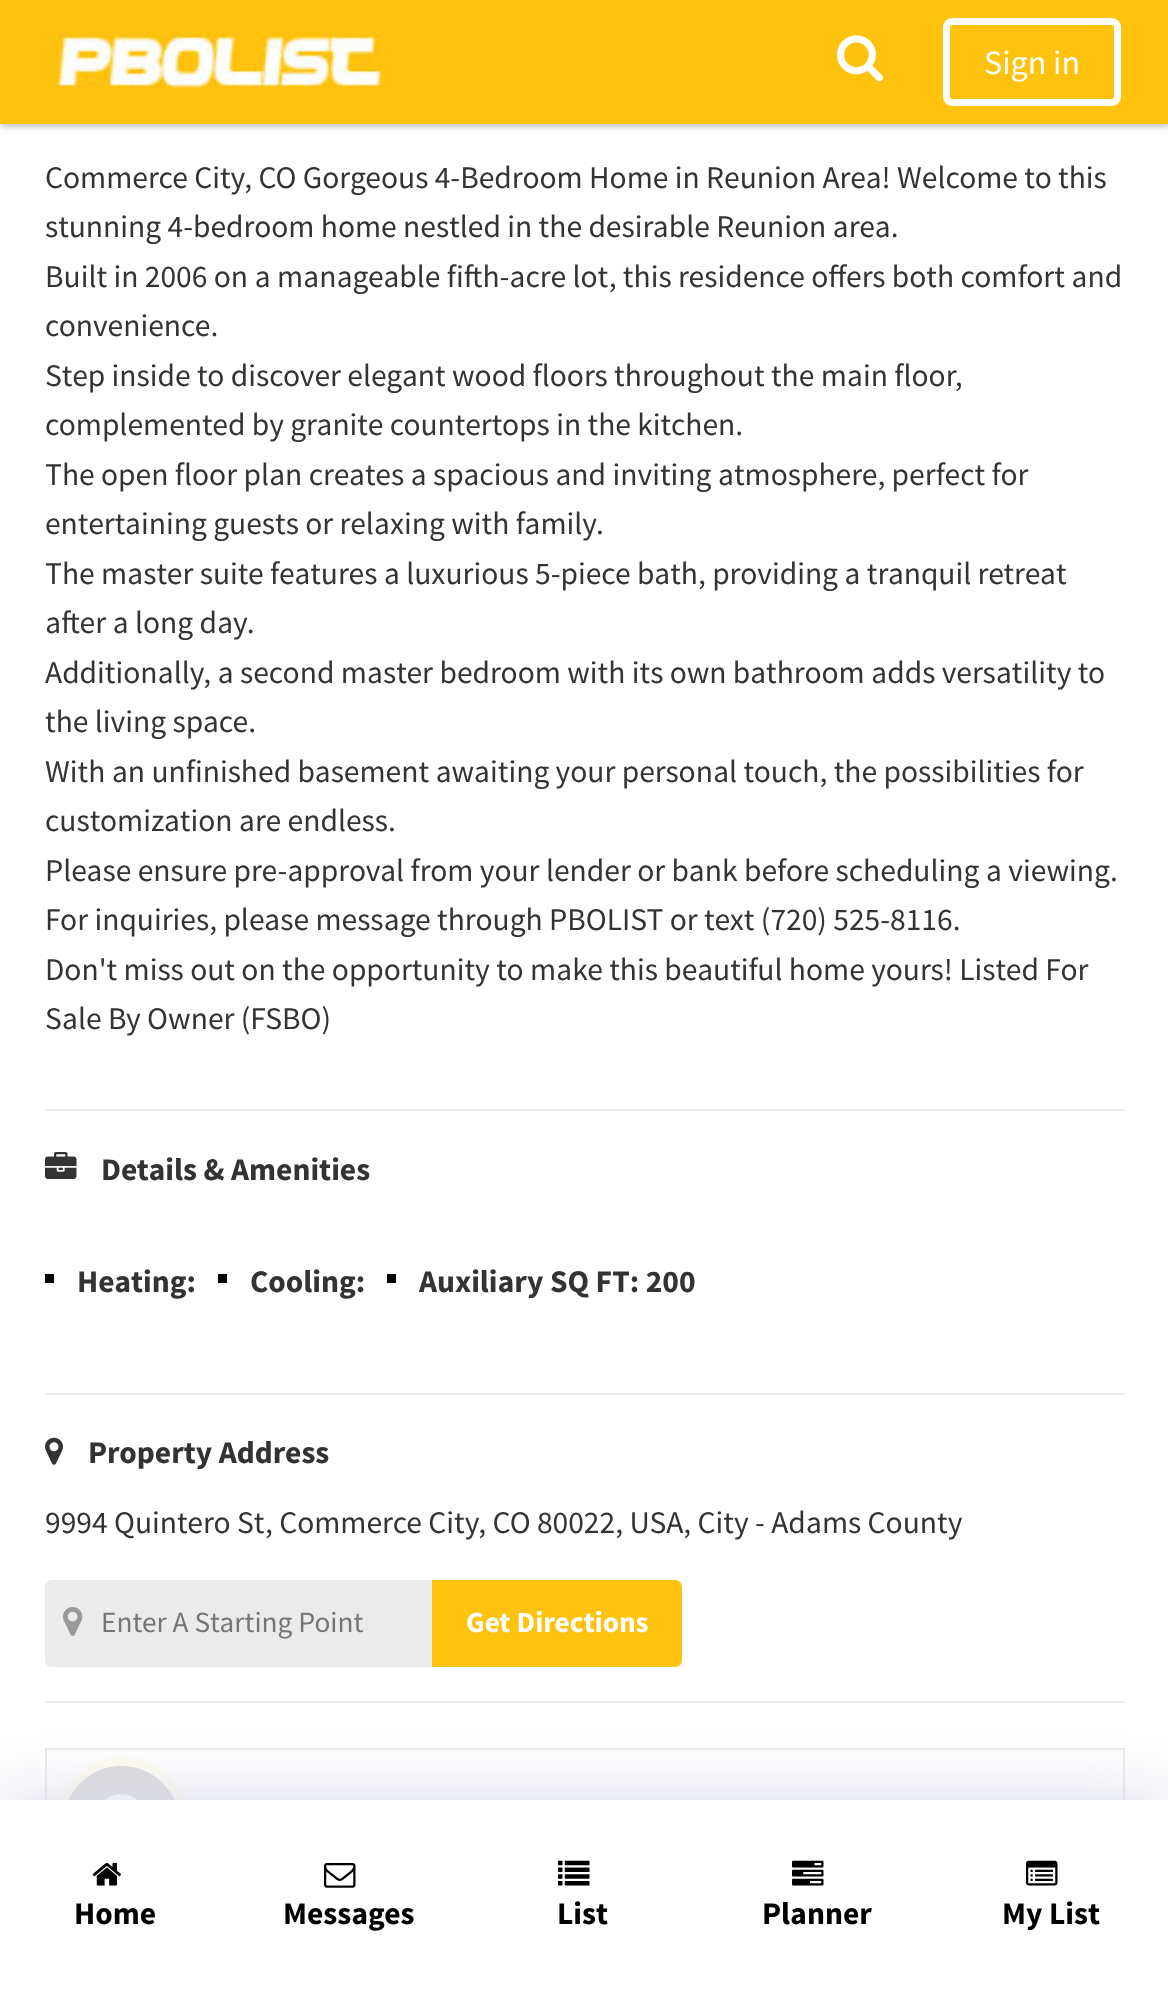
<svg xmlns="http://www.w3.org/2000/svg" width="1168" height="1991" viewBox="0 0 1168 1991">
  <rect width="100%" height="100%" fill="rgb(255,255,255)"/>
  <rect x="0" y="2" width="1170" height="124" fill="rgba(50,50,50,0.35)" filter="blur(3.5px)"/>
  <rect x="0" y="0" width="1168" height="124" fill="rgb(255,194,15)"/>
  <image x="56" y="33" width="325" height="55" href="pic1.png"/>
  <image x="837" y="35" width="46" height="47" href="pic2.png"/>
  <rect x="946.5" y="21.5" width="171" height="81" rx="5.5" fill="none" stroke="rgb(255,255,255)" stroke-width="7"/>
  <text x="984" y="74" font-family="Source Sans Pro" font-size="34" fill="rgb(255,255,255)">Sign in</text>
  <g font-family="Source Sans Pro" font-size="31.5" fill="rgb(51,51,51)">
    <text>
      <tspan x="45" y="188">Commerce City, CO Gorgeous 4-Bedroom Home in Reunion Area! Welcome to this</tspan>
      <tspan x="45" y="237">stunning 4-bedroom home nestled in the desirable Reunion area.</tspan>
      <tspan x="45" y="287">Built in 2006 on a manageable fifth-acre lot, this residence offers both comfort and</tspan>
      <tspan x="45" y="336">convenience.</tspan>
      <tspan x="45" y="386">Step inside to discover elegant wood floors throughout the main floor,</tspan>
      <tspan x="45" y="435">complemented by granite countertops in the kitchen.</tspan>
      <tspan x="45" y="485">The open floor plan creates a spacious and inviting atmosphere, perfect for</tspan>
      <tspan x="45" y="534">entertaining guests or relaxing with family.</tspan>
      <tspan x="45" y="584">The master suite features a luxurious 5-piece bath, providing a tranquil retreat</tspan>
      <tspan x="45" y="633">after a long day.</tspan>
      <tspan x="45" y="683">Additionally, a second master bedroom with its own bathroom adds versatility to</tspan>
      <tspan x="45" y="732">the living space.</tspan>
      <tspan x="45" y="782">With an unfinished basement awaiting your personal touch, the possibilities for</tspan>
      <tspan x="45" y="831">customization are endless.</tspan>
      <tspan x="45" y="881">Please ensure pre-approval from your lender or bank before scheduling a viewing.</tspan>
      <tspan x="45" y="930">For inquiries, please message through PBOLIST or text (720) 525-8116.</tspan>
      <tspan x="45" y="980">Don't miss out on the opportunity to make this beautiful home yours! Listed For</tspan>
      <tspan x="45" y="1029">Sale By Owner (FSBO)</tspan>
    </text>
  </g>
  <rect x="45" y="1109" width="1080" height="2" fill="rgb(238,238,238)"/>
  <image x="45" y="1152" width="32" height="27" href="pic3.png"/>
  <text x="101" y="1180" font-family="Source Sans Pro" font-size="31.5" font-weight="bold" fill="rgb(51,51,51)">Details &amp; Amenities</text>
  <rect x="45" y="1274" width="9" height="9" fill="rgb(0,0,0)"/>
  <text x="77" y="1292" font-family="Source Sans Pro" font-size="31.5" font-weight="bold" fill="rgb(51,51,51)">Heating:</text>
  <rect x="218" y="1274" width="9" height="9" fill="rgb(0,0,0)"/>
  <text x="250" y="1292" font-family="Source Sans Pro" font-size="31.5" font-weight="bold" fill="rgb(51,51,51)">Cooling:</text>
  <rect x="387" y="1274" width="9" height="9" fill="rgb(0,0,0)"/>
  <text x="419" y="1292" font-family="Source Sans Pro" font-size="31.5" font-weight="bold" fill="rgb(51,51,51)">Auxiliary SQ FT: 200</text>
  <rect x="45" y="1393" width="1080" height="2" fill="rgb(238,238,238)"/>
  <image x="45" y="1437" width="18" height="28" href="pic4.png"/>
  <text x="88" y="1463" font-family="Source Sans Pro" font-size="31.5" font-weight="bold" fill="rgb(51,51,51)">Property Address</text>
  <text x="45" y="1533" font-family="Source Sans Pro" font-size="31.5" fill="rgb(51,51,51)">9994 Quintero St, Commerce City, CO 80022, USA, City - Adams County</text>
  <path d="M52 1580H432V1667H52C48 1667 45 1664 45 1660V1587C45 1583 48 1580 52 1580Z" fill="rgb(235,235,235)"/>
  <image x="63" y="1607" width="20" height="29" href="pic5.png"/>
  <text x="101" y="1632" font-family="Source Sans Pro" font-size="29.25" fill="rgb(117,117,117)">Enter A Starting Point</text>
  <path d="M432 1580H675C679 1580 682 1583 682 1587V1660C682 1664 679 1667 675 1667H432Z" fill="rgb(255,194,15)"/>
  <text x="466" y="1632" font-family="Source Sans Pro" font-size="29.25" font-weight="bold" fill="rgb(255,255,255)">Get Directions</text>
  <rect x="45" y="1701" width="1080" height="2" fill="rgb(238,238,238)"/>
  <rect x="46" y="1749" width="1078" height="151" fill="none" stroke="rgb(235,235,235)" stroke-width="2"/>
  <circle cx="121.5" cy="1824.5" r="63" fill="none" stroke="rgb(255,253,241)" stroke-width="9"/>
  <image x="68" y="1766" width="107" height="34" href="pic6.png"/>
  <rect x="0" y="1800" width="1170" height="191" fill="rgb(215,216,233)" filter="blur(34px)"/>
  <rect x="0" y="1800" width="1168" height="191" fill="rgb(255,255,255)"/>
  <image x="92" y="1863" width="29" height="23" href="pic7.png"/>
  <text x="74" y="1924" font-family="Source Sans Pro" font-size="31.5" font-weight="bold" fill="rgb(0,0,0)">Home</text>
  <image x="324" y="1863" width="32" height="25" href="pic8.png"/>
  <text x="283" y="1924" font-family="Source Sans Pro" font-size="31.5" font-weight="bold" fill="rgb(0,0,0)">Messages</text>
  <image x="558" y="1860" width="32" height="26" href="pic9.png"/>
  <text x="557" y="1924" font-family="Source Sans Pro" font-size="31.5" font-weight="bold" fill="rgb(0,0,0)">List</text>
  <image x="792" y="1860" width="32" height="26" href="pic10.png"/>
  <text x="762" y="1924" font-family="Source Sans Pro" font-size="31.5" font-weight="bold" fill="rgb(0,0,0)">Planner</text>
  <image x="1026" y="1860" width="32" height="26" href="pic11.png"/>
  <text x="1002" y="1924" font-family="Source Sans Pro" font-size="31.5" font-weight="bold" fill="rgb(0,0,0)">My List</text>
</svg>
